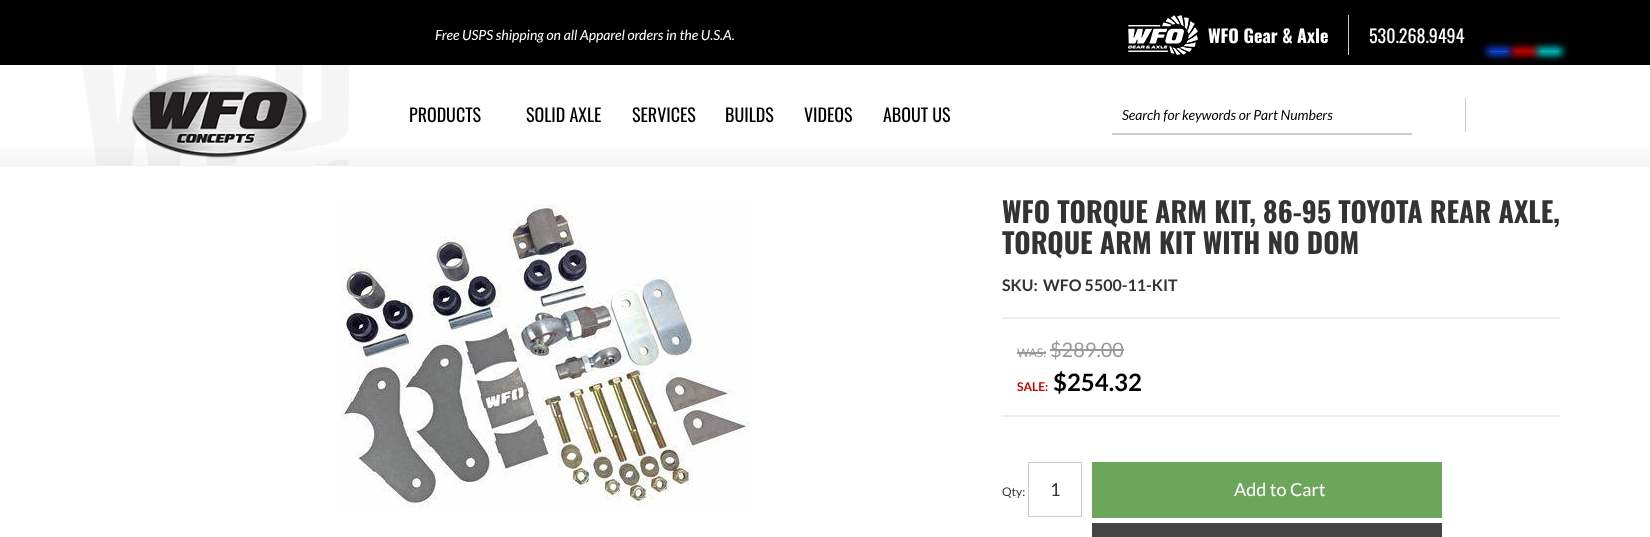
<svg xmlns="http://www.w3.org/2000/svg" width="1650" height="537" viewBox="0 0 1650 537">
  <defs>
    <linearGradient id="g1" gradientUnits="userSpaceOnUse" x1="825" y1="5" x2="825" y2="165"><stop offset="0.85" stop-color="rgb(255,255,255)"/><stop offset="1" stop-color="rgb(245,245,245)"/></linearGradient>
  </defs>
  <rect width="100%" height="100%" fill="rgb(255,255,255)"/>
  <rect x="0" y="147" width="1650" height="18" fill="url(#g1)"/>
  <rect x="0" y="0" width="1650" height="65" fill="rgb(0,0,0)"/>
  <rect x="0" y="165" width="1650" height="1" fill="rgb(238,238,238)"/>
  <text x="435" y="40" font-family="Lato" font-size="14" font-style="italic" fill="rgb(255,255,255)">Free USPS shipping on all Apparel orders in the U.S.A.</text>
  <rect x="1348" y="15" width="1" height="40" fill="rgb(204,204,204)"/>
  <image x="1128" y="15" width="70" height="40" href="pic1.png"/>
  <text x="1208" y="43" font-family="Oswald" font-size="18" font-weight="bold" fill="rgb(255,255,255)">WFO Gear &amp; Axle</text>
  <text x="1369" y="43" font-family="Oswald" font-size="18" fill="rgb(255,255,255)">530.268.9494</text>
  <rect x="1487" y="48" width="24" height="7" fill="rgb(17,85,255)" filter="blur(3.5px)"/>
  <rect x="1490" y="51" width="18" height="1" fill="rgb(11,79,249)"/>
  <rect x="1512" y="48" width="25" height="7" fill="rgb(255,0,0)" filter="blur(3.5px)"/>
  <rect x="1515" y="51" width="19" height="1" fill="rgb(193,0,0)"/>
  <rect x="1537" y="48" width="25" height="7" fill="rgb(0,245,245)" filter="blur(3.5px)"/>
  <rect x="1540" y="51" width="19" height="1" fill="rgb(2,185,185)"/>
  <image x="82" y="65" width="267" height="100" href="pic2.png"/>
  <image x="131" y="73" width="177" height="85" href="pic3.png"/>
  <g font-family="Oswald" font-size="18" fill="rgb(0,0,0)">
    <text x="409" y="122">PRODUCTS</text>
    <text x="526" y="122">SOLID AXLE</text>
    <text x="632" y="122">SERVICES</text>
    <text x="725" y="122">BUILDS</text>
    <text x="804" y="122">VIDEOS</text>
    <text x="883" y="122">ABOUT US</text>
  </g>
  <rect x="1465" y="98" width="1" height="34" fill="rgb(204,204,204)"/>
  <rect x="1112" y="133" width="300" height="2" fill="rgb(204,204,204)"/>
  <text x="1122" y="120" font-family="Lato" font-size="14" font-style="italic" fill="rgb(0,0,0)">Search for keywords or Part Numbers</text>
  <image x="341" y="204" width="408" height="304" href="pic4.png"/>
  <g font-family="Oswald" font-size="28" font-weight="bold" fill="rgb(51,51,51)">
    <text>
      <tspan x="1002" y="223">WFO TORQUE ARM KIT, 86-95 TOYOTA REAR AXLE,</tspan>
      <tspan x="1002" y="254">TORQUE ARM KIT WITH NO DOM</tspan>
    </text>
  </g>
  <g font-family="Lato" font-size="16" font-weight="bold" fill="rgb(51,51,51)">
    <text x="1002" y="291">SKU:</text>
    <text x="1043" y="291">WFO 5500-11-KIT</text>
  </g>
  <rect x="1002" y="317" width="558" height="2" fill="rgb(238,238,238)"/>
  <rect x="1002" y="415" width="558" height="2" fill="rgb(238,238,238)"/>
  <text x="1017" y="357" font-family="Lato" font-size="12" fill="rgb(153,153,153)">WAS:</text>
  <rect x="1017" y="352" width="29" height="2" fill="rgb(153,153,153)"/>
  <text x="1050" y="357" font-family="Lato" font-size="20" fill="rgb(153,153,153)">$289.00</text>
  <rect x="1050" y="349" width="74" height="2" fill="rgb(153,153,153)"/>
  <text x="1017" y="391" font-family="Lato" font-size="12" font-weight="bold" fill="rgb(204,0,0)">SALE:</text>
  <text x="1053" y="391" font-family="Lato" font-size="24" font-weight="bold" fill="rgb(0,0,0)">$254.32</text>
  <text x="1002" y="496" font-family="Lato" font-size="12" fill="rgb(51,51,51)">Qty:</text>
  <rect x="1028.5" y="462.5" width="53" height="54" fill="none" stroke="rgb(204,204,204)"/>
  <text x="1050" y="496" font-family="Lato" font-size="18" fill="rgb(51,51,51)">1</text>
  <rect x="1092" y="462" width="350" height="56" fill="rgb(108,166,90)"/>
  <text x="1234" y="496" font-family="Lato" font-size="18" fill="rgb(255,255,255)">Add to Cart</text>
  <rect x="1092" y="523" width="350" height="14" fill="rgb(68,68,68)"/>
</svg>
